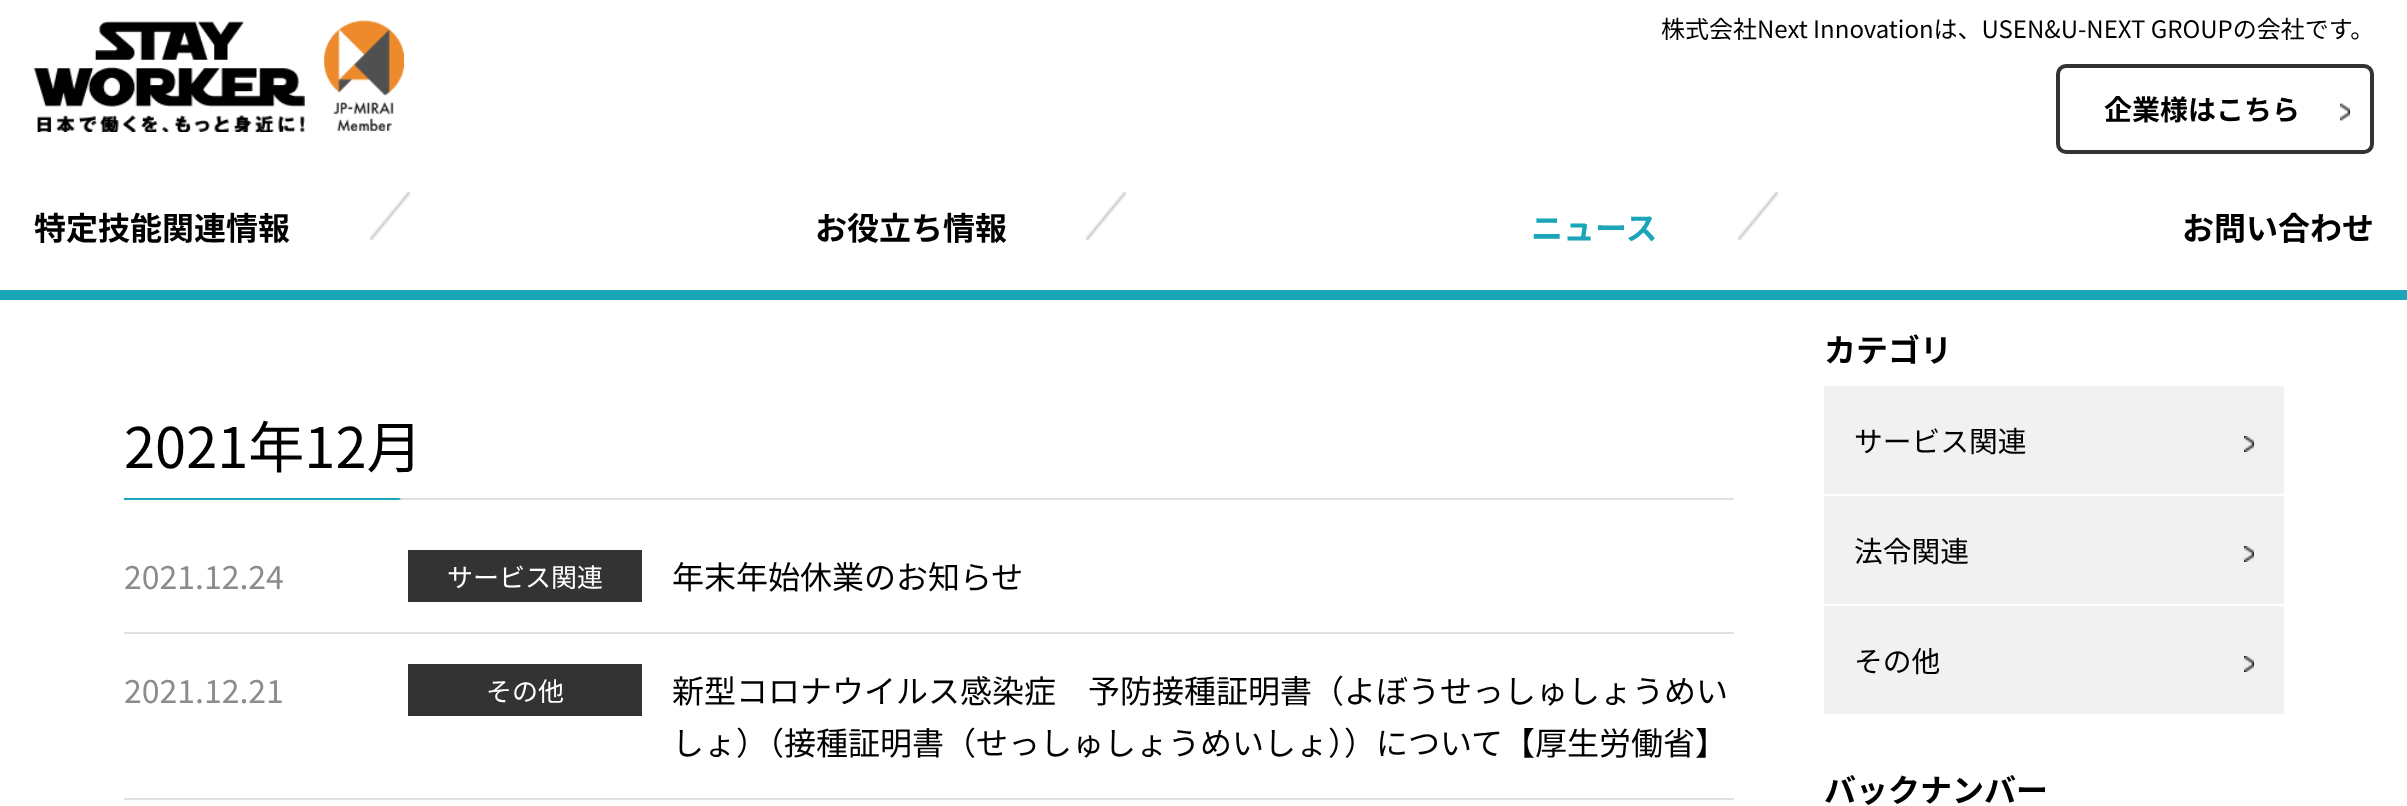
<svg xmlns="http://www.w3.org/2000/svg" width="2407" height="806" viewBox="0 0 2407 806">
  <rect width="100%" height="100%" fill="rgb(255,255,255)"/>
  <rect x="0" y="290" width="2407" height="10" fill="rgb(26,165,184)"/>
  <image x="34" y="20" width="370" height="112" href="pic1.png"/>
  <text x="1661" y="38" font-family="Noto Sans JP" font-size="24" fill="rgb(0,0,0)">株式会社Next Innovationは、USEN&amp;U-NEXT GROUPの会社です。</text>
  <rect x="2058" y="66" width="314" height="86" rx="8" fill="none" stroke="rgb(51,51,51)" stroke-width="4"/>
  <text x="2104" y="120" font-family="Noto Sans JP" font-size="28" font-weight="bold" fill="rgb(0,0,0)">企業様はこちら</text>
  <image x="2340" y="103" width="10" height="18" href="pic2.png"/>
  <text x="34" y="240" font-family="Noto Sans JP" font-size="32" font-weight="bold" fill="rgb(0,0,0)">特定技能関連情報</text>
  <image x="370" y="192" width="40" height="48" href="pic3.png"/>
  <text x="815" y="240" font-family="Noto Sans JP" font-size="32" font-weight="bold" fill="rgb(0,0,0)">お役立ち情報</text>
  <image x="1086" y="192" width="40" height="48" href="pic3.png"/>
  <text x="1531" y="240" font-family="Noto Sans JP" font-size="32" font-weight="bold" fill="rgb(26,165,184)">ニュース</text>
  <image x="1738" y="192" width="40" height="48" href="pic3.png"/>
  <text x="2182" y="240" font-family="Noto Sans JP" font-size="32" font-weight="bold" fill="rgb(0,0,0)">お問い合わせ</text>
  <image x="124" y="498" width="1610" height="2" href="pic4.png"/>
  <text x="124" y="468" font-family="Noto Sans JP" font-size="56" fill="rgb(0,0,0)">2021年12月</text>
  <rect x="124" y="632" width="1610" height="2" fill="rgb(224,224,224)"/>
  <text x="124" y="589" font-family="Noto Sans JP" font-size="32" fill="rgb(140,140,140)">2021.12.24</text>
  <rect x="408" y="550" width="234" height="52" fill="rgb(51,51,51)"/>
  <text x="447" y="587" font-family="Noto Sans JP" font-size="26" fill="rgb(255,255,255)">サービス関連</text>
  <text x="672" y="589" font-family="Noto Sans JP" font-size="32" fill="rgb(0,0,0)">年末年始休業のお知らせ</text>
  <rect x="124" y="798" width="1610" height="2" fill="rgb(224,224,224)"/>
  <text x="124" y="703" font-family="Noto Sans JP" font-size="32" fill="rgb(140,140,140)">2021.12.21</text>
  <rect x="408" y="664" width="234" height="52" fill="rgb(51,51,51)"/>
  <text x="486" y="701" font-family="Noto Sans JP" font-size="26" fill="rgb(255,255,255)">その他</text>
  <g font-family="Noto Sans JP" font-size="32" fill="rgb(0,0,0)">
    <text>
      <tspan x="672" y="703">新型コロナウイルス感染症　予防接種証明書（よぼうせっしゅしょうめい</tspan>
      <tspan x="672" y="755">しょ）（接種証明書（せっしゅしょうめいしょ））について【厚生労働省】</tspan>
    </text>
  </g>
  <text x="1824" y="362" font-family="Noto Sans JP" font-size="32" font-weight="bold" fill="rgb(0,0,0)">カテゴリ</text>
  <rect x="1824" y="386" width="460" height="108" fill="rgb(241,241,241)"/>
  <text x="1854" y="452" font-family="Noto Sans JP" font-size="28.75" fill="rgb(0,0,0)">サービス関連</text>
  <image x="2244" y="436" width="10" height="16" href="pic5.png"/>
  <rect x="1824" y="496" width="460" height="108" fill="rgb(241,241,241)"/>
  <text x="1854" y="562" font-family="Noto Sans JP" font-size="28.75" fill="rgb(0,0,0)">法令関連</text>
  <image x="2244" y="546" width="10" height="16" href="pic5.png"/>
  <rect x="1824" y="606" width="460" height="108" fill="rgb(241,241,241)"/>
  <text x="1854" y="672" font-family="Noto Sans JP" font-size="28.75" fill="rgb(0,0,0)">その他</text>
  <image x="2244" y="656" width="10" height="16" href="pic5.png"/>
  <text x="1824" y="802" font-family="Noto Sans JP" font-size="32" font-weight="bold" fill="rgb(0,0,0)">バックナンバー</text>
</svg>
